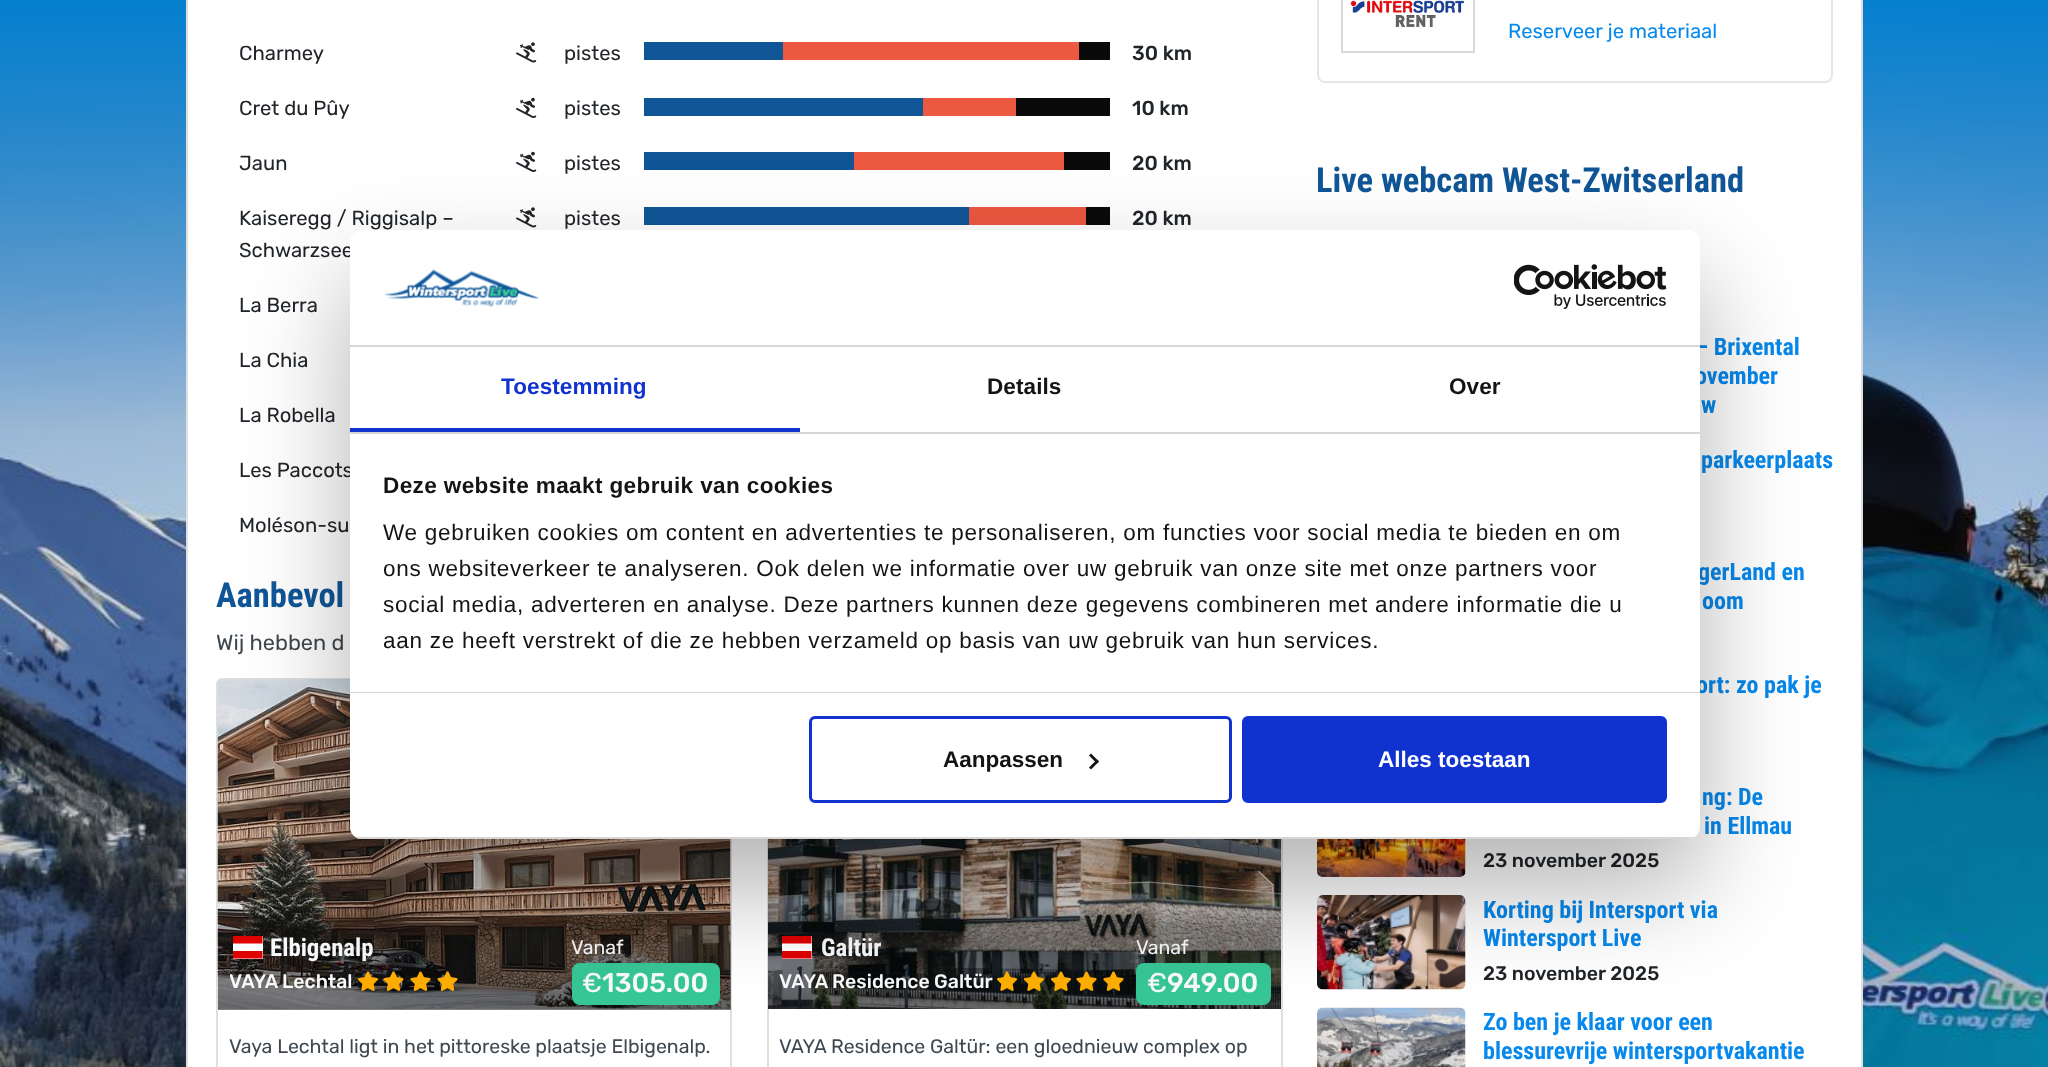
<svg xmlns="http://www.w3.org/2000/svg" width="2048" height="1067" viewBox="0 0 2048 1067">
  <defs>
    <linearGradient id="g1" gradientUnits="userSpaceOnUse" x1="474" y1="1010" x2="474" y2="905"><stop offset="0" stop-color="rgb(0,0,0)" stop-opacity="0.5"/><stop offset="0.8" stop-color="rgb(0,0,0)" stop-opacity="0.3"/><stop offset="1" stop-color="rgb(0,0,0)" stop-opacity="0"/></linearGradient>
    <clipPath id="clip1"><rect x="233" y="936" width="30" height="23"/></clipPath>
    <clipPath id="clip2"><rect x="230" y="968" width="228" height="28"/></clipPath>
    <clipPath id="clip3"><rect x="782" y="936" width="30" height="23"/></clipPath>
    <clipPath id="clip4"><rect x="350" y="230" width="1350" height="609" rx="12"/></clipPath>
  </defs>
  <rect width="100%" height="100%" fill="rgb(255,255,255)"/>
  <image x="0" y="0" width="2048" height="1067" href="pic1.png"/>
  <rect x="187" y="-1" width="1675" height="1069" fill="rgb(255,255,255)" stroke="rgb(223,223,223)" stroke-width="2"/>
  <text x="239" y="60" font-family="Rubik" font-size="20.25" fill="rgb(33,37,41)">Charmey</text>
  <image x="516" y="42" width="21" height="21" href="pic2.png"/>
  <text x="564" y="60" font-family="Rubik" font-size="20.25" fill="rgb(33,37,41)">pistes</text>
  <rect x="644" y="42" width="139" height="18" fill="rgb(16,86,151)"/>
  <rect x="783" y="42" width="296" height="18" fill="rgb(236,88,64)"/>
  <rect x="1079" y="42" width="31" height="18" fill="rgb(10,10,10)"/>
  <text x="1132" y="60" font-family="Rubik" font-size="20.25" font-weight="500" fill="rgb(33,37,41)">30 km</text>
  <text x="239" y="115" font-family="Rubik" font-size="20.25" fill="rgb(33,37,41)">Cret du Pûy</text>
  <image x="516" y="97" width="21" height="21" href="pic3.png"/>
  <text x="564" y="115" font-family="Rubik" font-size="20.25" fill="rgb(33,37,41)">pistes</text>
  <rect x="644" y="98" width="279" height="18" fill="rgb(16,86,151)"/>
  <rect x="923" y="98" width="93" height="18" fill="rgb(236,88,64)"/>
  <rect x="1016" y="98" width="94" height="18" fill="rgb(10,10,10)"/>
  <text x="1132" y="115" font-family="Rubik" font-size="20.25" font-weight="500" fill="rgb(33,37,41)">10 km</text>
  <text x="239" y="170" font-family="Rubik" font-size="20.25" fill="rgb(33,37,41)">Jaun</text>
  <image x="516" y="151" width="21" height="21" href="pic3.png"/>
  <text x="564" y="170" font-family="Rubik" font-size="20.25" fill="rgb(33,37,41)">pistes</text>
  <rect x="644" y="152" width="210" height="18" fill="rgb(16,86,151)"/>
  <rect x="854" y="152" width="210" height="18" fill="rgb(236,88,64)"/>
  <rect x="1064" y="152" width="46" height="18" fill="rgb(10,10,10)"/>
  <text x="1132" y="170" font-family="Rubik" font-size="20.25" font-weight="500" fill="rgb(33,37,41)">20 km</text>
  <g font-family="Rubik" font-size="20.25" fill="rgb(33,37,41)">
    <text>
      <tspan x="239" y="225">Kaiseregg / Riggisalp –</tspan>
      <tspan x="239" y="257">Schwarzsee</tspan>
    </text>
  </g>
  <image x="516" y="207" width="21" height="21" href="pic2.png"/>
  <text x="564" y="225" font-family="Rubik" font-size="20.25" fill="rgb(33,37,41)">pistes</text>
  <rect x="644" y="207" width="325" height="18" fill="rgb(16,86,151)"/>
  <rect x="969" y="207" width="117" height="18" fill="rgb(236,88,64)"/>
  <rect x="1086" y="207" width="24" height="18" fill="rgb(10,10,10)"/>
  <text x="1132" y="225" font-family="Rubik" font-size="20.25" font-weight="500" fill="rgb(33,37,41)">20 km</text>
  <g font-family="Rubik" font-size="20.25" fill="rgb(33,37,41)">
    <text x="239" y="312">La Berra</text>
    <text x="239" y="367">La Chia</text>
    <text x="239" y="422">La Robella</text>
    <text x="239" y="477">Les Paccots</text>
    <text x="239" y="532">Moléson-su</text>
  </g>
  <text x="216" y="607" font-family="Roboto Condensed" font-size="34.5" font-weight="bold" fill="rgb(16,86,151)">Aanbevol</text>
  <text x="216" y="650" font-family="Rubik" font-size="21.75" fill="rgb(63,72,80)">Wij hebben d</text>
  <rect x="217" y="679" width="514" height="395" rx="5" fill="none" stroke="rgb(223,223,223)" stroke-width="2"/>
  <image x="217" y="679" width="514" height="330" href="pic4.png"/>
  <rect x="218" y="907" width="513" height="103" fill="url(#g1)"/>
  <rect x="233" y="936" width="30" height="23" fill="rgb(255,255,255)"/>
  <g clip-path="url(#clip1)">
    <path d="M262.5 958.5H232.5V951H262.5ZM262.5 943.5H232.5V936H262.5Z" fill="rgb(223,0,0)" fill-rule="evenodd"/>
  </g>
  <text x="270" y="956" font-family="Roboto Condensed" font-size="24.75" font-weight="bold" fill="rgb(248,249,250)">Elbigenalp</text>
  <g clip-path="url(#clip2)">
    <text x="229" y="988" font-family="Rubik" font-size="19.5" font-weight="500" fill="rgb(248,249,250)">VAYA Lechtal</text>
  </g>
  <image x="358" y="971" width="20" height="20" href="pic5.png"/>
  <image x="383" y="971" width="21" height="20" href="pic6.png"/>
  <image x="410" y="971" width="21" height="20" href="pic7.png"/>
  <image x="437" y="971" width="21" height="20" href="pic8.png"/>
  <text x="571" y="954" font-family="Rubik" font-size="19.5" fill="rgb(248,249,250)">Vanaf</text>
  <rect x="572" y="963" width="148" height="42" rx="8" fill="rgb(55,198,150)"/>
  <text x="582" y="992" font-family="Rubik" font-size="27" fill="rgb(248,249,250)">€</text>
  <text x="602" y="992" font-family="Rubik" font-size="27" font-weight="500" fill="rgb(248,249,250)">1305.00</text>
  <text x="229" y="1053" font-family="Rubik" font-size="19.5" fill="rgb(63,72,80)">Vaya Lechtal ligt in het pittoreske plaatsje Elbigenalp.</text>
  <rect x="768" y="679" width="514" height="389" fill="none" stroke="rgb(223,223,223)" stroke-width="2"/>
  <image x="768" y="839" width="513" height="170" href="pic9.png"/>
  <rect x="782" y="936" width="30" height="23" fill="rgb(255,255,255)"/>
  <g clip-path="url(#clip3)">
    <path d="M811.5 958.5H781.5V951H811.5ZM811.5 943.5H781.5V936H811.5Z" fill="rgb(223,0,0)" fill-rule="evenodd"/>
  </g>
  <text x="821" y="956" font-family="Roboto Condensed" font-size="24.75" font-weight="bold" fill="rgb(248,249,250)">Galtür</text>
  <text x="779" y="988" font-family="Rubik" font-size="19.5" font-weight="500" fill="rgb(248,249,250)">VAYA Residence Galtür</text>
  <image x="997" y="971" width="20" height="20" href="pic10.png"/>
  <image x="1024" y="971" width="20" height="20" href="pic11.png"/>
  <image x="1051" y="971" width="20" height="20" href="pic12.png"/>
  <image x="1076" y="971" width="21" height="20" href="pic13.png"/>
  <image x="1103" y="971" width="21" height="20" href="pic14.png"/>
  <text x="1136" y="954" font-family="Rubik" font-size="19.5" fill="rgb(248,249,250)">Vanaf</text>
  <rect x="1136" y="963" width="135" height="42" rx="8" fill="rgb(55,198,150)"/>
  <text x="1147" y="992" font-family="Rubik" font-size="27" fill="rgb(248,249,250)">€</text>
  <text x="1167" y="992" font-family="Rubik" font-size="27" font-weight="500" fill="rgb(248,249,250)">949.00</text>
  <text x="779" y="1053" font-family="Rubik" font-size="19.5" fill="rgb(63,72,80)">VAYA Residence Galtür: een gloednieuw complex op</text>
  <rect x="1318" y="-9" width="514" height="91" rx="7" fill="none" stroke="rgb(230,230,230)" stroke-width="2"/>
  <rect x="1342" y="-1" width="132" height="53" fill="none" stroke="rgb(217,217,217)" stroke-width="2"/>
  <image x="1350" y="0" width="115" height="27" href="pic15.png"/>
  <text x="1508" y="38" font-family="Rubik" font-size="20.25" fill="rgb(6,136,236)">Reserveer je materiaal</text>
  <text x="1316" y="192" font-family="Roboto Condensed" font-size="34.5" font-weight="bold" fill="rgb(16,86,151)">Live webcam West-Zwitserland</text>
  <g font-family="Roboto Condensed" font-size="24" font-weight="bold" fill="rgb(6,136,236)">
    <text>
      <tspan x="1695" y="355">– Brixental</tspan>
      <tspan x="1695" y="384">ovember</tspan>
    </text>
    <text x="1701" y="413">w</text>
    <text x="1701" y="468">parkeerplaats</text>
    <text x="1698" y="580">gerLand en</text>
    <text x="1702" y="609">oom</text>
    <text x="1696" y="693">ort: zo pak je</text>
  </g>
  <image x="1317" y="839" width="149" height="38" href="pic16.png"/>
  <g font-family="Roboto Condensed" font-size="24" font-weight="bold" fill="rgb(6,136,236)">
    <text x="1702" y="805">ng: De</text>
    <text x="1704" y="834">in Ellmau</text>
  </g>
  <text x="1483" y="867" font-family="Rubik" font-size="19.5" font-weight="500" fill="rgb(33,37,41)">23 november 2025</text>
  <image x="1317" y="895" width="149" height="95" href="pic17.png"/>
  <g font-family="Roboto Condensed" font-size="24" font-weight="bold" fill="rgb(6,136,236)">
    <text>
      <tspan x="1483" y="918">Korting bij Intersport via</tspan>
      <tspan x="1483" y="946">Wintersport Live</tspan>
    </text>
  </g>
  <text x="1483" y="980" font-family="Rubik" font-size="19.5" font-weight="500" fill="rgb(33,37,41)">23 november 2025</text>
  <image x="1317" y="1007" width="149" height="60" href="pic18.png"/>
  <g font-family="Roboto Condensed" font-size="24" font-weight="bold" fill="rgb(6,136,236)">
    <text>
      <tspan x="1483" y="1030">Zo ben je klaar voor een</tspan>
      <tspan x="1483" y="1059">blessurevrije wintersportvakantie</tspan>
    </text>
  </g>
  <rect x="350" y="278" width="1350" height="609" rx="12" fill="rgba(0,0,0,0.3)" filter="blur(51px)"/>
  <rect x="350" y="230" width="1350" height="609" rx="12" fill="rgb(255,255,255)"/>
  <rect x="350" y="345" width="1350" height="2" fill="rgb(214,214,214)"/>
  <image x="384" y="269" width="155" height="38" href="pic19.png"/>
  <image x="1514" y="264" width="153" height="45" href="pic20.png"/>
  <rect x="350" y="432" width="1350" height="2" fill="rgb(214,214,214)"/>
  <rect x="350" y="428" width="450" height="4" fill="rgb(16,50,207)"/>
  <text x="501" y="394" font-family="Liberation Sans" font-size="22.5" font-weight="bold" letter-spacing="0.1" fill="rgb(16,50,207)">Toestemming</text>
  <g font-family="Liberation Sans" font-size="22.5" font-weight="bold" letter-spacing="0.1" fill="rgb(20,20,20)">
    <text x="987" y="394">Details</text>
    <text x="1449" y="394">Over</text>
  </g>
  <rect x="350" y="692" width="1350" height="1" fill="rgb(214,214,214)"/>
  <text x="383" y="493" font-family="Liberation Sans" font-size="22.5" font-weight="bold" letter-spacing="0.4" fill="rgb(20,20,20)">Deze website maakt gebruik van cookies</text>
  <g font-family="Liberation Sans" font-size="22.5" letter-spacing="0.75" fill="rgb(20,20,20)">
    <text>
      <tspan x="383" y="540">We gebruiken cookies om content en advertenties te personaliseren, om functies voor social media te bieden en om</tspan>
      <tspan x="383" y="576">ons websiteverkeer te analyseren. Ook delen we informatie over uw gebruik van onze site met onze partners voor</tspan>
      <tspan x="383" y="612">social media, adverteren en analyse. Deze partners kunnen deze gegevens combineren met andere informatie die u</tspan>
      <tspan x="383" y="648">aan ze heeft verstrekt of die ze hebben verzameld op basis van uw gebruik van hun services.</tspan>
    </text>
  </g>
  <g clip-path="url(#clip4)">
    <rect x="350" y="837" width="1350" height="2" fill="rgb(214,214,214)"/>
  </g>
  <rect x="810.5" y="717.5" width="420" height="84" rx="4.5" fill="none" stroke="rgb(16,50,207)" stroke-width="3"/>
  <text x="943" y="767" font-family="Liberation Sans" font-size="22.5" font-weight="bold" fill="rgb(20,20,20)">Aanpassen</text>
  <path d="M1091 753.5L1099 761.5L1097 763.5L1089 755.5Z" fill="rgb(20,20,20)"/>
  <path d="M1097 759.5L1099 761.5L1091 769.5L1089 767.5Z" fill="rgb(20,20,20)"/>
  <rect x="1243.5" y="717.5" width="422" height="84" rx="4.5" fill="rgb(16,50,207)" stroke="rgb(16,50,207)" stroke-width="3"/>
  <text x="1378" y="767" font-family="Liberation Sans" font-size="22.5" font-weight="bold" fill="rgb(255,255,255)">Alles toestaan</text>
</svg>
